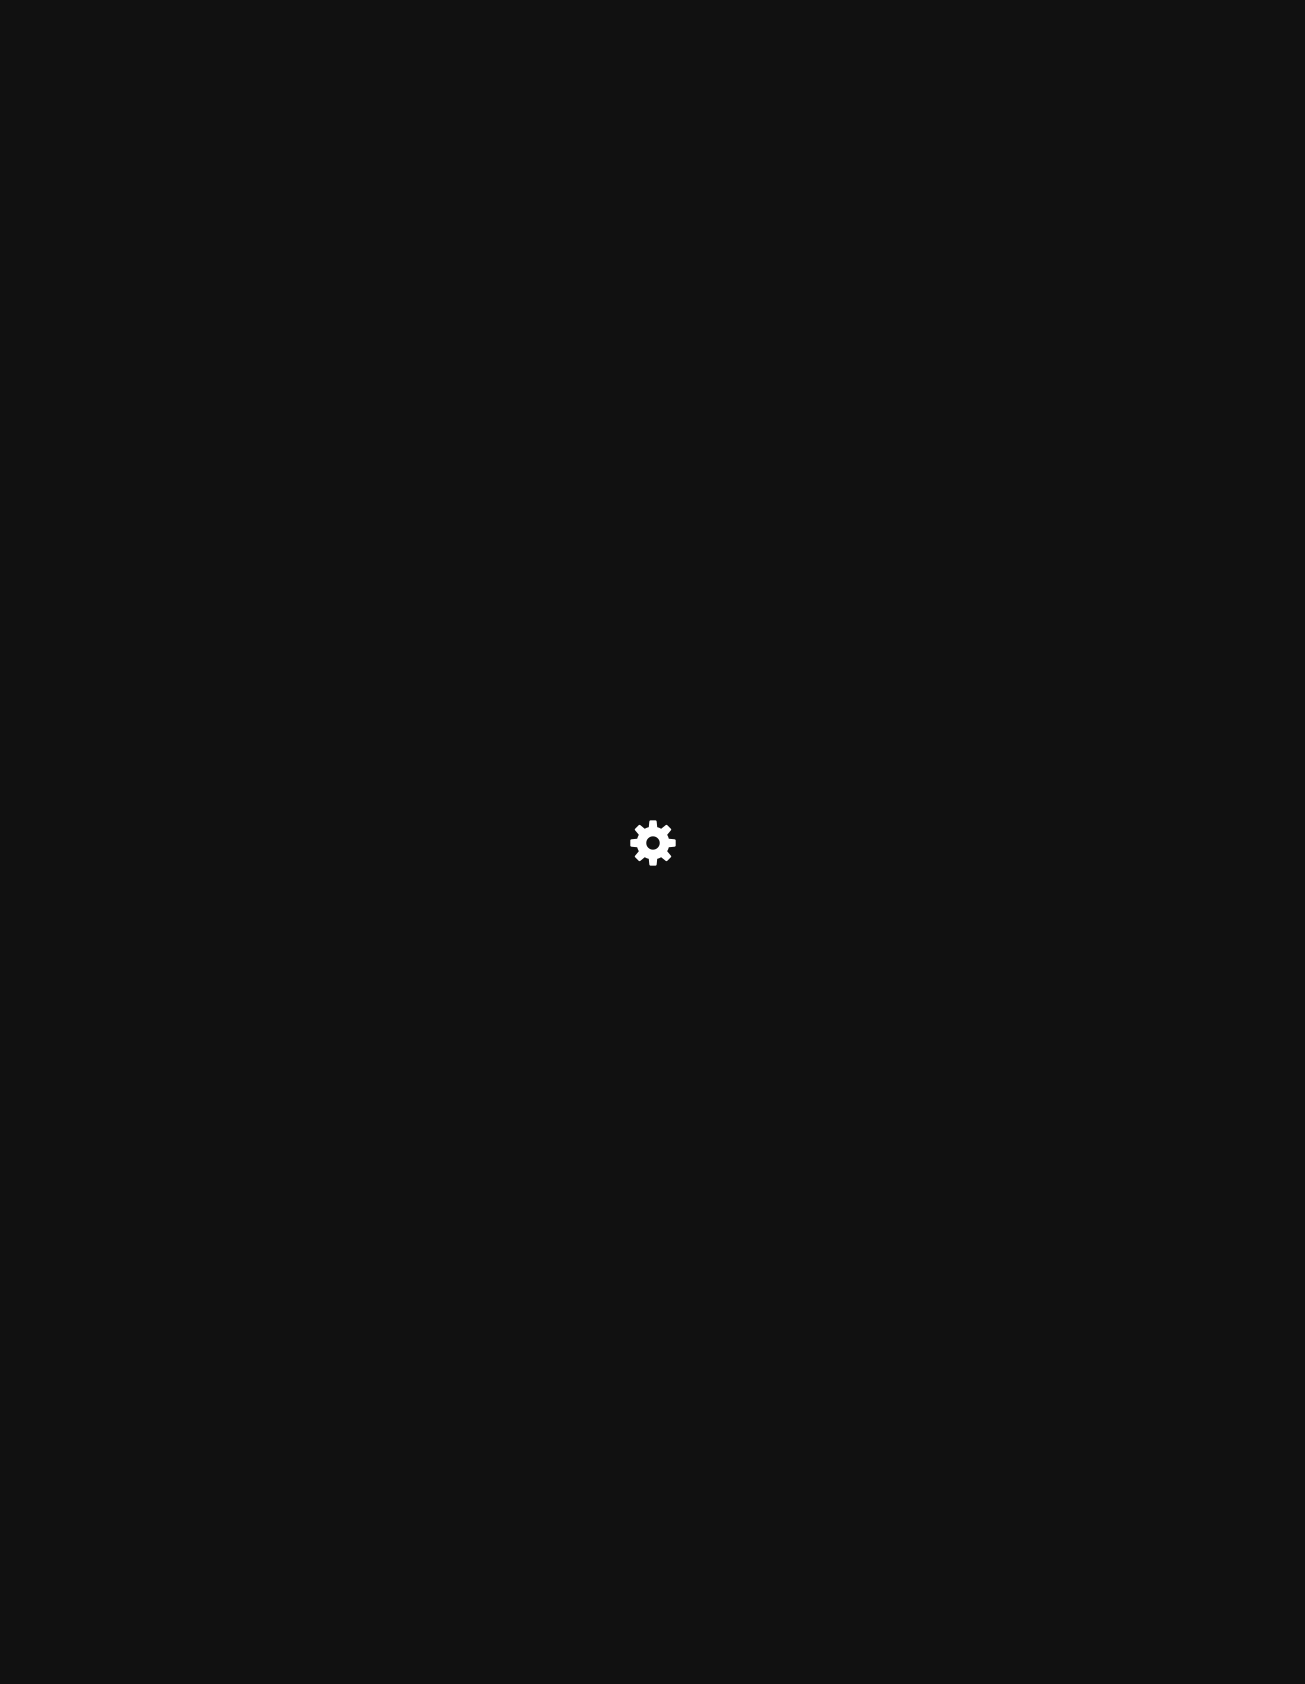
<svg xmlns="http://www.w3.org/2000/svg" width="1305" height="1684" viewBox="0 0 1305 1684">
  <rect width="100%" height="100%" fill="rgb(17,17,17)"/>
  <image x="630" y="820" width="46" height="46" href="pic1.png"/>
</svg>
